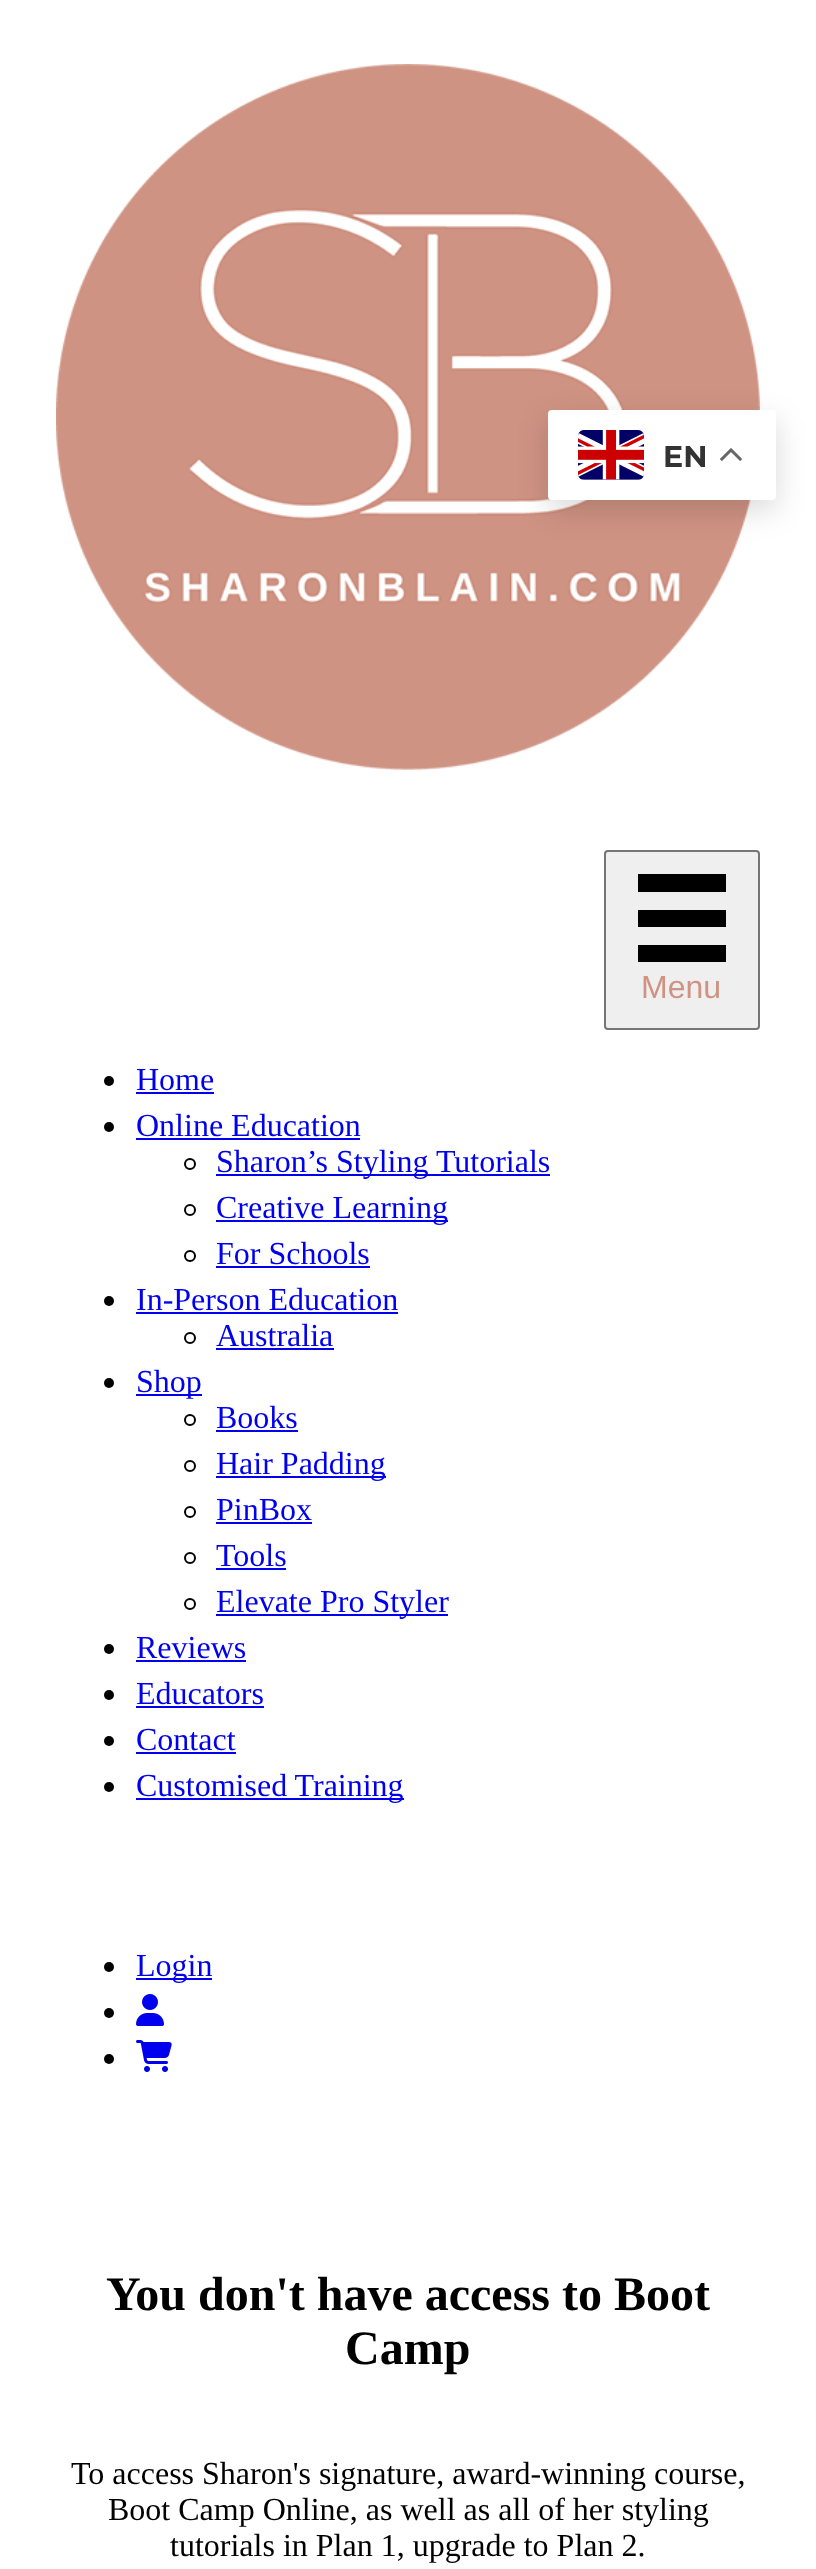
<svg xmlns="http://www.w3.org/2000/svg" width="816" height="2569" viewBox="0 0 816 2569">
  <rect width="100%" height="100%" fill="rgb(255,255,255)"/>
  <image x="56" y="64" width="704" height="706" href="pic3.png"/>
  <rect x="548" y="420" width="228" height="90" rx="4" fill="rgba(0,0,0,0.15)" filter="blur(15px)"/>
  <rect x="548" y="410" width="228" height="90" rx="4" fill="rgb(255,255,255)"/>
  <image x="578" y="430" width="66" height="50" href="pic1.png"/>
  <text x="663" y="467" font-family="Montserrat" font-size="30" font-weight="bold" fill="rgb(51,51,51)">EN</text>
  <image x="720" y="448" width="22" height="13" href="pic2.png"/>
  <rect x="605" y="851" width="154" height="178" rx="3" fill="rgb(239,239,239)" stroke="rgb(118,118,118)" stroke-width="2"/>
  <rect x="638" y="874" width="88" height="18" fill="rgb(0,0,0)"/>
  <rect x="638" y="910" width="88" height="17" fill="rgb(0,0,0)"/>
  <rect x="638" y="945" width="88" height="17" fill="rgb(0,0,0)"/>
  <text x="641" y="998" font-family="Liberation Sans" font-size="32" fill="rgb(208,147,131)">Menu</text>
  <circle cx="109" cy="1081" r="5" fill="rgb(0,0,0)"/>
  <text x="136" y="1090" font-family="Liberation Serif" font-size="32" fill="rgb(0,0,238)">Home</text>
  <rect x="136" y="1092" width="78" height="2" fill="rgb(0,0,238)"/>
  <circle cx="109" cy="1127" r="5" fill="rgb(0,0,0)"/>
  <text x="136" y="1136" font-family="Liberation Serif" font-size="32" fill="rgb(0,0,238)">Online Education</text>
  <rect x="136" y="1138" width="224" height="2" fill="rgb(0,0,238)"/>
  <circle cx="190" cy="1164" r="5" fill="none" stroke="rgb(0,0,0)" stroke-width="2"/>
  <rect x="216" y="1174" width="334" height="2" fill="rgb(0,0,238)"/>
  <text x="216" y="1172" font-family="Liberation Serif" font-size="32" fill="rgb(0,0,238)">Sharon’s Styling Tutorials</text>
  <circle cx="190" cy="1210" r="5" fill="none" stroke="rgb(0,0,0)" stroke-width="2"/>
  <rect x="216" y="1220" width="232" height="2" fill="rgb(0,0,238)"/>
  <text x="216" y="1218" font-family="Liberation Serif" font-size="32" fill="rgb(0,0,238)">Creative Learning</text>
  <circle cx="190" cy="1256" r="5" fill="none" stroke="rgb(0,0,0)" stroke-width="2"/>
  <text x="216" y="1264" font-family="Liberation Serif" font-size="32" fill="rgb(0,0,238)">For Schools</text>
  <rect x="216" y="1266" width="154" height="2" fill="rgb(0,0,238)"/>
  <circle cx="109" cy="1301" r="5" fill="rgb(0,0,0)"/>
  <text x="136" y="1310" font-family="Liberation Serif" font-size="32" fill="rgb(0,0,238)">In-Person Education</text>
  <rect x="136" y="1312" width="262" height="2" fill="rgb(0,0,238)"/>
  <circle cx="190" cy="1338" r="5" fill="none" stroke="rgb(0,0,0)" stroke-width="2"/>
  <text x="216" y="1346" font-family="Liberation Serif" font-size="32" fill="rgb(0,0,238)">Australia</text>
  <rect x="216" y="1348" width="118" height="2" fill="rgb(0,0,238)"/>
  <circle cx="109" cy="1383" r="5" fill="rgb(0,0,0)"/>
  <rect x="136" y="1394" width="66" height="2" fill="rgb(0,0,238)"/>
  <text x="136" y="1392" font-family="Liberation Serif" font-size="32" fill="rgb(0,0,238)">Shop</text>
  <circle cx="190" cy="1420" r="5" fill="none" stroke="rgb(0,0,0)" stroke-width="2"/>
  <text x="216" y="1428" font-family="Liberation Serif" font-size="32" fill="rgb(0,0,238)">Books</text>
  <rect x="216" y="1430" width="82" height="2" fill="rgb(0,0,238)"/>
  <circle cx="190" cy="1466" r="5" fill="none" stroke="rgb(0,0,0)" stroke-width="2"/>
  <rect x="216" y="1476" width="170" height="2" fill="rgb(0,0,238)"/>
  <text x="216" y="1474" font-family="Liberation Serif" font-size="32" fill="rgb(0,0,238)">Hair Padding</text>
  <circle cx="190" cy="1512" r="5" fill="none" stroke="rgb(0,0,0)" stroke-width="2"/>
  <text x="216" y="1520" font-family="Liberation Serif" font-size="32" fill="rgb(0,0,238)">PinBox</text>
  <rect x="216" y="1522" width="96" height="2" fill="rgb(0,0,238)"/>
  <circle cx="190" cy="1558" r="5" fill="none" stroke="rgb(0,0,0)" stroke-width="2"/>
  <text x="216" y="1566" font-family="Liberation Serif" font-size="32" fill="rgb(0,0,238)">Tools</text>
  <rect x="216" y="1568" width="70" height="2" fill="rgb(0,0,238)"/>
  <circle cx="190" cy="1604" r="5" fill="none" stroke="rgb(0,0,0)" stroke-width="2"/>
  <rect x="216" y="1614" width="232" height="2" fill="rgb(0,0,238)"/>
  <text x="216" y="1612" font-family="Liberation Serif" font-size="32" fill="rgb(0,0,238)">Elevate Pro Styler</text>
  <circle cx="109" cy="1649" r="5" fill="rgb(0,0,0)"/>
  <text x="136" y="1658" font-family="Liberation Serif" font-size="32" fill="rgb(0,0,238)">Reviews</text>
  <rect x="136" y="1660" width="110" height="2" fill="rgb(0,0,238)"/>
  <circle cx="109" cy="1695" r="5" fill="rgb(0,0,0)"/>
  <text x="136" y="1704" font-family="Liberation Serif" font-size="32" fill="rgb(0,0,238)">Educators</text>
  <rect x="136" y="1706" width="128" height="2" fill="rgb(0,0,238)"/>
  <circle cx="109" cy="1741" r="5" fill="rgb(0,0,0)"/>
  <text x="136" y="1750" font-family="Liberation Serif" font-size="32" fill="rgb(0,0,238)">Contact</text>
  <rect x="136" y="1752" width="100" height="2" fill="rgb(0,0,238)"/>
  <circle cx="109" cy="1787" r="5" fill="rgb(0,0,0)"/>
  <rect x="136" y="1798" width="268" height="2" fill="rgb(0,0,238)"/>
  <text x="136" y="1796" font-family="Liberation Serif" font-size="32" fill="rgb(0,0,238)">Customised Training</text>
  <circle cx="109" cy="1967" r="5" fill="rgb(0,0,0)"/>
  <rect x="136" y="1978" width="76" height="2" fill="rgb(0,0,238)"/>
  <text x="136" y="1976" font-family="Liberation Serif" font-size="32" fill="rgb(0,0,238)">Login</text>
  <circle cx="109" cy="2013" r="5" fill="rgb(0,0,0)"/>
  <image x="136" y="1994" width="28" height="32" href="pic4.png"/>
  <circle cx="109" cy="2059" r="5" fill="rgb(0,0,0)"/>
  <image x="136" y="2040" width="36" height="32" href="pic5.png"/>
  <g font-family="Liberation Serif" font-size="48" font-weight="bold" fill="rgb(0,0,0)">
    <text x="106" y="2310">You don't have access to Boot</text>
    <text x="345" y="2364">Camp</text>
  </g>
  <g font-family="Liberation Serif" font-size="32" fill="rgb(0,0,0)">
    <text x="71" y="2484">To access Sharon's signature, award-winning course,</text>
    <text x="108" y="2520">Boot Camp Online, as well as all of her styling</text>
    <text x="170" y="2556">tutorials in Plan 1, upgrade to Plan 2.</text>
  </g>
</svg>
